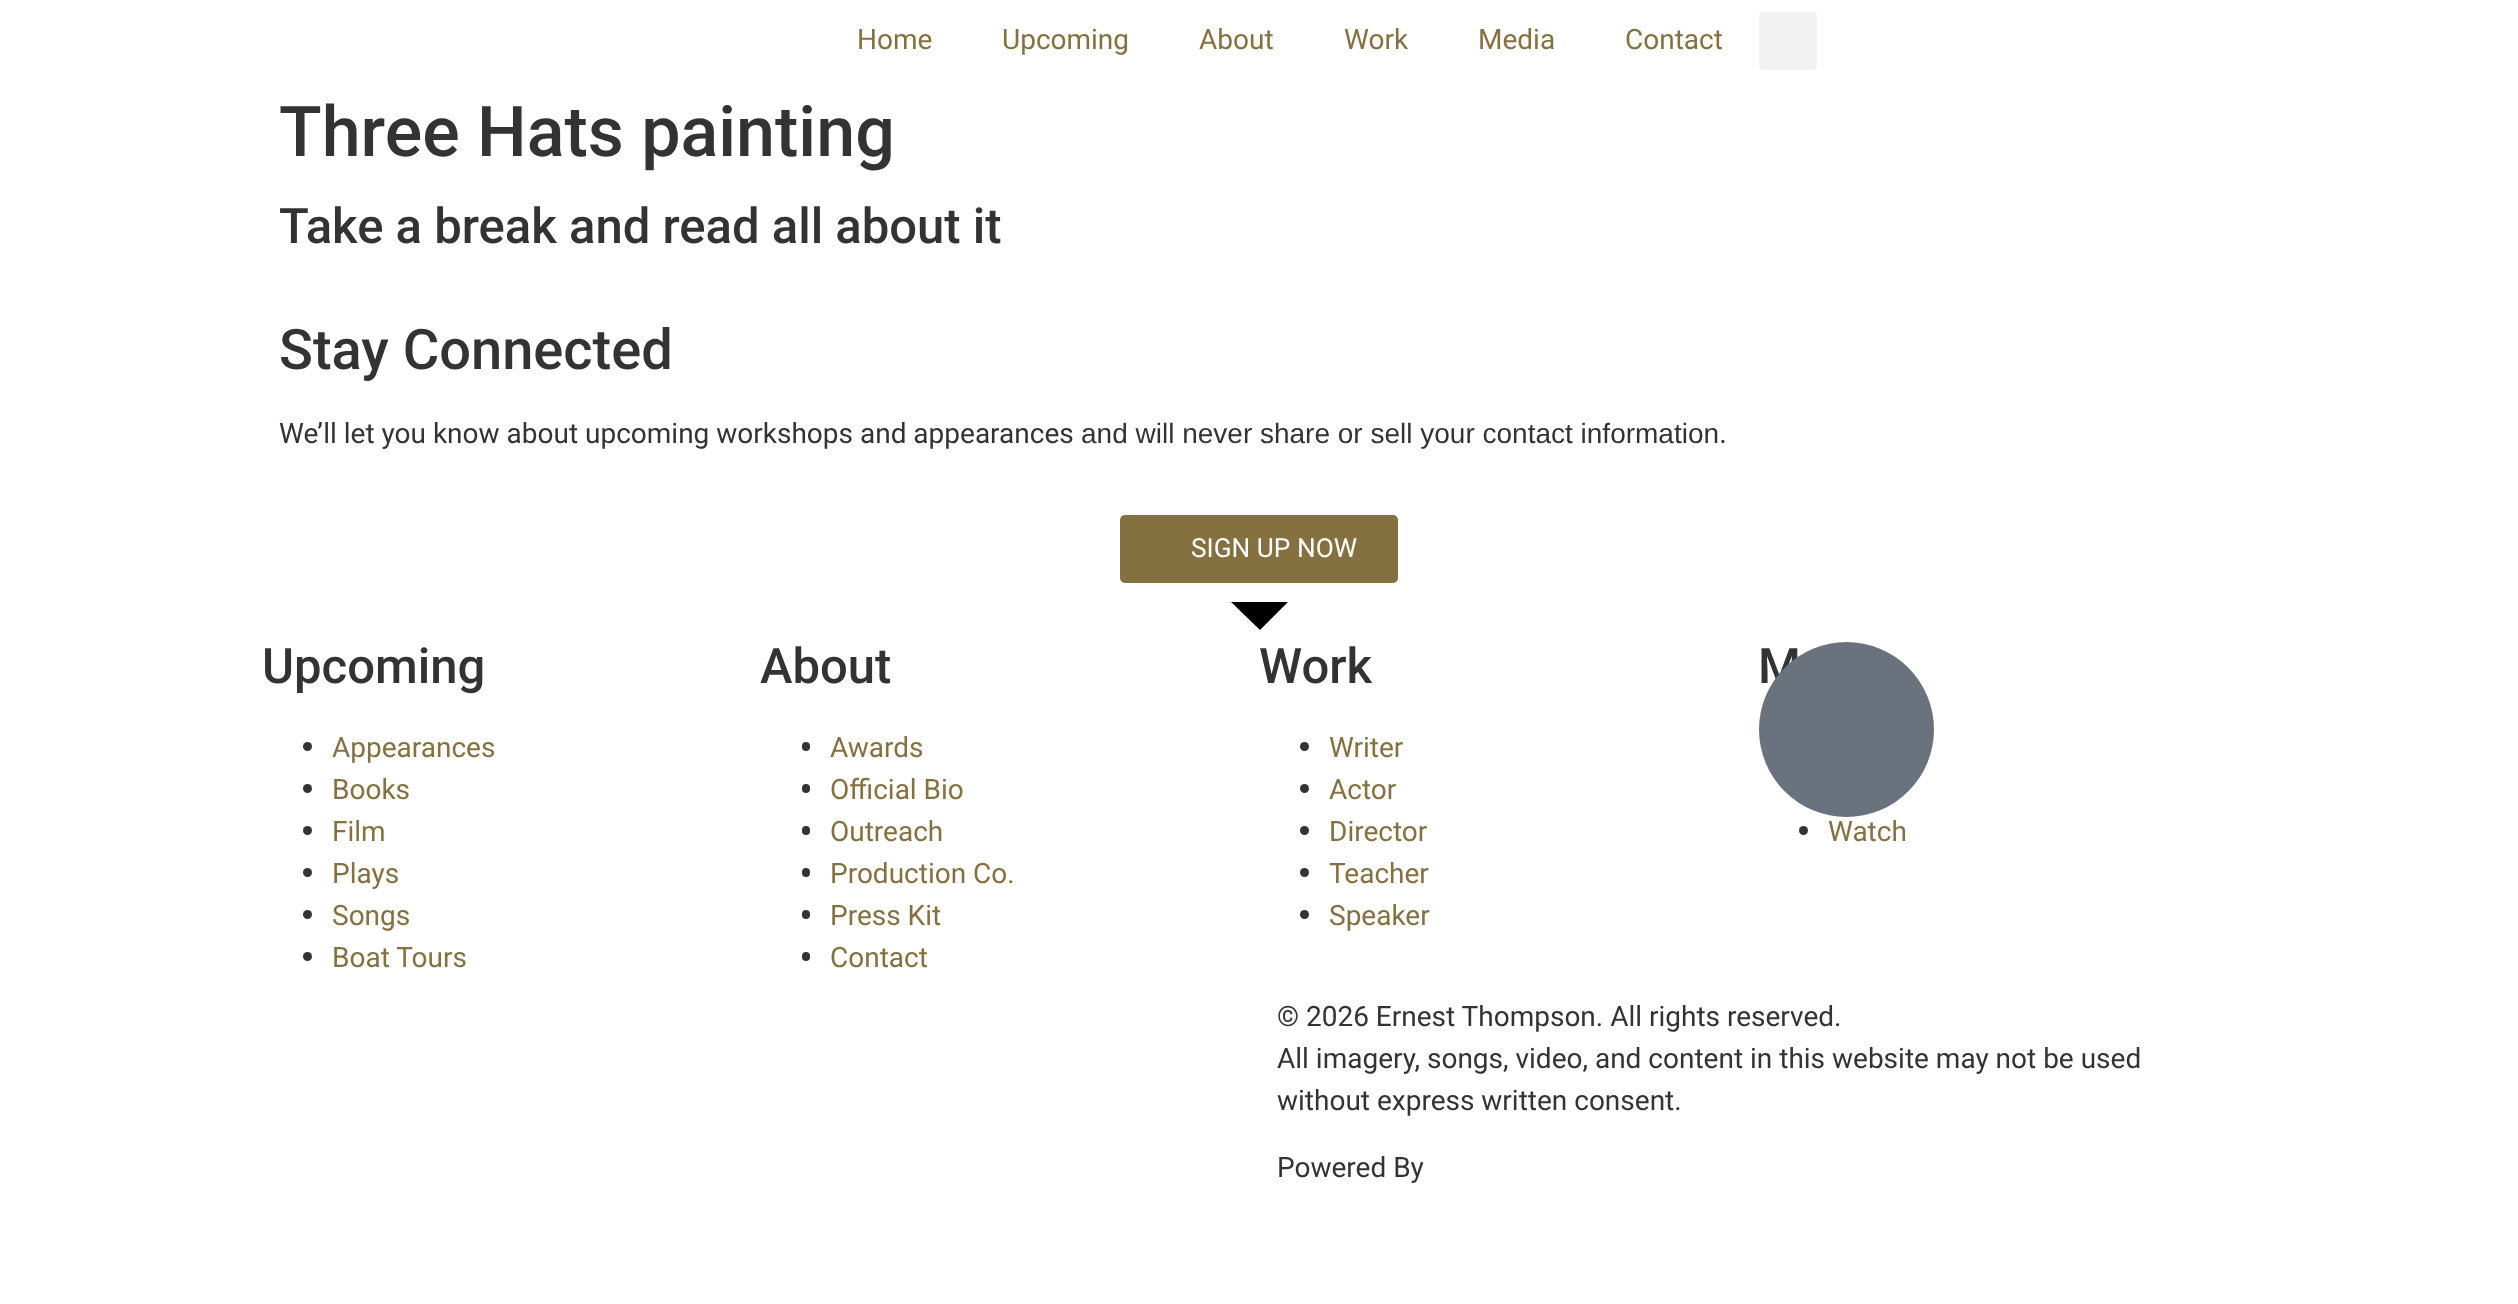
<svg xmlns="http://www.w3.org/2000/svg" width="2518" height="1304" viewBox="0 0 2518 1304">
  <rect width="100%" height="100%" fill="rgb(255,255,255)"/>
  <g font-family="Roboto" font-size="28" fill="rgb(133,112,64)">
    <text x="857" y="49">Home</text>
    <text x="1002" y="49">Upcoming</text>
    <text x="1199" y="49">About</text>
    <text x="1344" y="49">Work</text>
    <text x="1478" y="49">Media</text>
    <text x="1625" y="49">Contact</text>
  </g>
  <rect x="1759" y="12" width="58" height="58" rx="5" fill="rgb(242,242,242)"/>
  <text x="279" y="156" font-family="Roboto" font-size="70" font-weight="500" fill="rgb(51,51,51)">Three Hats painting</text>
  <text x="279" y="243" font-family="Roboto" font-size="49" font-weight="500" fill="rgb(51,51,51)">Take a break and read all about it</text>
  <text x="279" y="369" font-family="Roboto" font-size="56" font-weight="500" fill="rgb(51,51,51)">Stay Connected</text>
  <text x="279" y="443" font-family="Roboto" font-size="28" fill="rgb(51,51,51)">We’ll let you know about upcoming workshops and appearances</text>
  <text x="1081" y="443" font-family="Liberation Sans" font-size="28" fill="rgb(51,51,51)">and will never share or sell your contact information.</text>
  <rect x="1120" y="515" width="278" height="68" rx="5" fill="rgb(133,112,64)"/>
  <text x="1191" y="557" font-family="Roboto" font-size="26.25" fill="rgb(255,255,255)">SIGN UP NOW</text>
  <path d="M1260 630L1231 602H1288Z" fill="rgb(0,0,0)"/>
  <text x="262" y="683" font-family="Roboto" font-size="49" font-weight="500" fill="rgb(51,51,51)">Upcoming</text>
  <circle cx="307.5" cy="746.5" r="4.5" fill="rgb(51,51,51)"/>
  <text x="332" y="757" font-family="Roboto" font-size="28" fill="rgb(133,112,64)">Appearances</text>
  <circle cx="307.5" cy="788.5" r="4.5" fill="rgb(51,51,51)"/>
  <text x="332" y="799" font-family="Roboto" font-size="28" fill="rgb(133,112,64)">Books</text>
  <circle cx="307.5" cy="830.5" r="4.5" fill="rgb(51,51,51)"/>
  <text x="332" y="841" font-family="Roboto" font-size="28" fill="rgb(133,112,64)">Film</text>
  <circle cx="307.5" cy="872.5" r="4.5" fill="rgb(51,51,51)"/>
  <text x="332" y="883" font-family="Roboto" font-size="28" fill="rgb(133,112,64)">Plays</text>
  <circle cx="307.5" cy="914.5" r="4.5" fill="rgb(51,51,51)"/>
  <text x="332" y="925" font-family="Roboto" font-size="28" fill="rgb(133,112,64)">Songs</text>
  <circle cx="307.5" cy="956.5" r="4.5" fill="rgb(51,51,51)"/>
  <text x="332" y="967" font-family="Roboto" font-size="28" fill="rgb(133,112,64)">Boat Tours</text>
  <text x="760" y="683" font-family="Roboto" font-size="49" font-weight="500" fill="rgb(51,51,51)">About</text>
  <rect x="802" y="742" width="8" height="9" rx="4" fill="rgb(51,51,51)"/>
  <text x="830" y="757" font-family="Roboto" font-size="28" fill="rgb(133,112,64)">Awards</text>
  <rect x="802" y="784" width="8" height="9" rx="4" fill="rgb(51,51,51)"/>
  <text x="830" y="799" font-family="Roboto" font-size="28" fill="rgb(133,112,64)">Official Bio</text>
  <rect x="802" y="826" width="8" height="9" rx="4" fill="rgb(51,51,51)"/>
  <text x="830" y="841" font-family="Roboto" font-size="28" fill="rgb(133,112,64)">Outreach</text>
  <rect x="802" y="868" width="8" height="9" rx="4" fill="rgb(51,51,51)"/>
  <text x="830" y="883" font-family="Roboto" font-size="28" fill="rgb(133,112,64)">Production Co.</text>
  <rect x="802" y="910" width="8" height="9" rx="4" fill="rgb(51,51,51)"/>
  <text x="830" y="925" font-family="Roboto" font-size="28" fill="rgb(133,112,64)">Press Kit</text>
  <rect x="802" y="952" width="8" height="9" rx="4" fill="rgb(51,51,51)"/>
  <text x="830" y="967" font-family="Roboto" font-size="28" fill="rgb(133,112,64)">Contact</text>
  <text x="1259" y="683" font-family="Roboto" font-size="49" font-weight="500" fill="rgb(51,51,51)">Work</text>
  <circle cx="1304.5" cy="746.5" r="4.5" fill="rgb(51,51,51)"/>
  <text x="1329" y="757" font-family="Roboto" font-size="28" fill="rgb(133,112,64)">Writer</text>
  <circle cx="1304.5" cy="788.5" r="4.5" fill="rgb(51,51,51)"/>
  <text x="1329" y="799" font-family="Roboto" font-size="28" fill="rgb(133,112,64)">Actor</text>
  <circle cx="1304.5" cy="830.5" r="4.5" fill="rgb(51,51,51)"/>
  <text x="1329" y="841" font-family="Roboto" font-size="28" fill="rgb(133,112,64)">Director</text>
  <circle cx="1304.5" cy="872.5" r="4.5" fill="rgb(51,51,51)"/>
  <text x="1329" y="883" font-family="Roboto" font-size="28" fill="rgb(133,112,64)">Teacher</text>
  <circle cx="1304.5" cy="914.5" r="4.5" fill="rgb(51,51,51)"/>
  <text x="1329" y="925" font-family="Roboto" font-size="28" fill="rgb(133,112,64)">Speaker</text>
  <text x="1758" y="683" font-family="Roboto" font-size="49" font-weight="500" fill="rgb(51,51,51)">M</text>
  <circle cx="1846.5" cy="729.5" r="87.5" fill="rgb(105,114,125)"/>
  <circle cx="1803.5" cy="830.5" r="4.5" fill="rgb(51,51,51)"/>
  <text x="1828" y="841" font-family="Roboto" font-size="28" fill="rgb(133,112,64)">Watch</text>
  <g font-family="Roboto" font-size="28" fill="rgb(51,51,51)">
    <text>
      <tspan x="1277" y="1026">© 2026 Ernest Thompson. All rights reserved.</tspan>
      <tspan x="1277" y="1068">All imagery, songs, video, and content in this website may not be used</tspan>
      <tspan x="1277" y="1110">without express written consent.</tspan>
    </text>
    <text x="1277" y="1177">Powered By</text>
  </g>
</svg>
